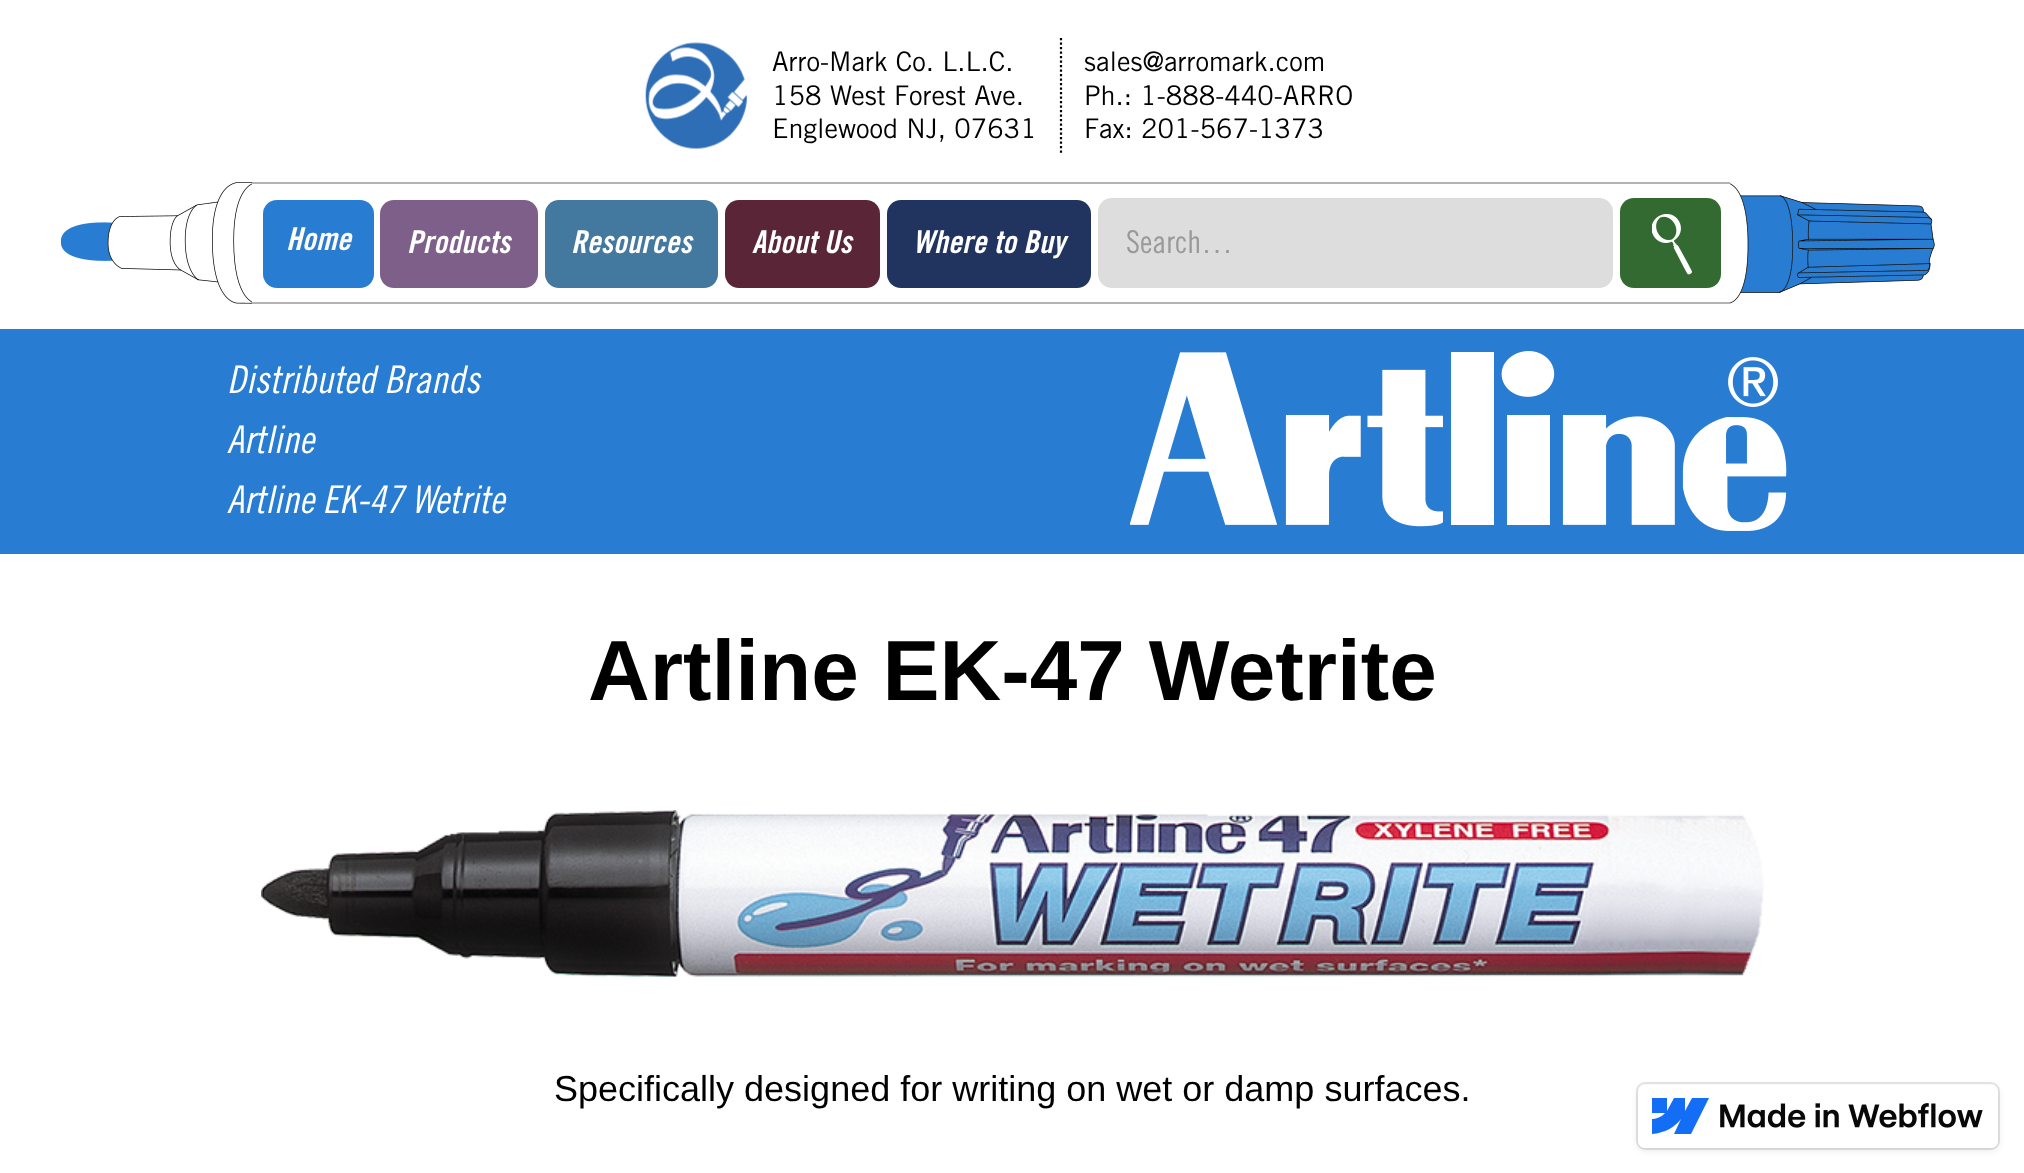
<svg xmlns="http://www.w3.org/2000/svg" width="2024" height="1173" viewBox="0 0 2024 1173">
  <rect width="100%" height="100%" fill="rgb(255,255,255)"/>
  <image x="645" y="42" width="102" height="107" href="pic1.png"/>
  <g font-family="Trade Gothic" font-size="27" fill="rgb(0,0,0)">
    <text>
      <tspan x="772" y="71">Arro-Mark Co. L.L.C.</tspan>
      <tspan x="772" y="105">158 West Forest Ave.</tspan>
      <tspan x="772" y="138">Englewood NJ, 07631</tspan>
    </text>
  </g>
  <path d="M1061 38V153" fill="none" stroke="rgb(0,0,0)" stroke-width="2.2" stroke-dasharray="2.25 2.25"/>
  <g font-family="Trade Gothic" font-size="27" fill="rgb(0,0,0)">
    <text>
      <tspan x="1084" y="71">sales@arromark.com</tspan>
      <tspan x="1084" y="105">Ph.: 1-888-440-ARRO</tspan>
      <tspan x="1084" y="138">Fax: 201-567-1373</tspan>
    </text>
  </g>
  <image x="61" y="182" width="191" height="122" href="pic2.png"/>
  <rect x="252" y="182" width="1478" height="2" fill="rgb(179,179,179)"/>
  <rect x="252" y="302" width="1478" height="2" fill="rgb(179,179,179)"/>
  <rect x="263" y="200" width="111" height="88" rx="14" fill="rgb(40,124,210)"/>
  <text x="286" y="250" font-family="Trade Gothic" font-size="31.5" font-weight="bold" font-style="italic" fill="rgb(255,250,240)">Home</text>
  <rect x="380" y="200" width="158" height="88" rx="14" fill="rgb(125,95,137)"/>
  <text x="407" y="253" font-family="'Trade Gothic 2'" font-size="31.5" font-weight="bold" font-style="italic" fill="rgb(255,255,255)">Products</text>
  <rect x="545" y="200" width="173" height="88" rx="14" fill="rgb(67,121,159)"/>
  <text x="571" y="253" font-family="'Trade Gothic 2'" font-size="31.5" font-weight="bold" font-style="italic" fill="rgb(255,255,255)">Resources</text>
  <rect x="725" y="200" width="155" height="88" rx="14" fill="rgb(90,37,55)"/>
  <text x="752" y="253" font-family="'Trade Gothic 2'" font-size="31.5" font-weight="bold" font-style="italic" fill="rgb(255,255,255)">About Us</text>
  <rect x="887" y="200" width="204" height="88" rx="14" fill="rgb(33,52,96)"/>
  <text x="913" y="253" font-family="'Trade Gothic 2'" font-size="31.5" font-weight="bold" font-style="italic" fill="rgb(255,255,255)">Where to Buy</text>
  <rect x="1098" y="198" width="515" height="90" rx="14" fill="rgb(221,221,221)"/>
  <text x="1126" y="253" font-family="'Trade Gothic 2'" font-size="31.5" fill="rgb(153,153,153)">Search…</text>
  <rect x="1620" y="198" width="101" height="90" rx="14" fill="rgb(51,106,50)"/>
  <image x="1652" y="214" width="40" height="61" href="pic3.png"/>
  <image x="1730" y="183" width="205" height="121" href="pic4.png"/>
  <rect x="0" y="329" width="2024" height="225" fill="rgb(40,124,210)"/>
  <g font-family="Trade Gothic" font-size="38.25" font-style="italic" fill="rgb(255,255,255)">
    <text>
      <tspan x="227" y="393">Distributed Brands</tspan>
      <tspan x="227" y="453">Artline</tspan>
      <tspan x="227" y="513">Artline EK-47 Wetrite</tspan>
    </text>
  </g>
  <image x="1130" y="351" width="657" height="180" href="pic5.png"/>
  <text x="588" y="700" font-family="Liberation Sans" font-size="85.5" font-weight="bold" fill="rgb(0,0,0)">Artline EK-47 Wetrite</text>
  <image x="261" y="810" width="1503" height="167" href="pic6.png"/>
  <text x="554" y="1101" font-family="Liberation Sans" font-size="36" fill="rgb(0,0,0)">Specifically designed for writing on wet or damp surfaces.</text>
  <rect x="1638" y="1087" width="360" height="63" rx="7" fill="rgba(0,0,0,0.1)" filter="blur(3.5px)"/>
  <rect x="1637" y="1083" width="362" height="66" rx="8" fill="none" stroke="rgba(0,0,0,0.1)" stroke-width="2"/>
  <rect x="1638" y="1085" width="360" height="63" rx="7" fill="rgb(255,255,255)"/>
  <path d="M1709 1098L1691 1134H1674L1681 1119C1675 1127 1665 1133 1652 1134V1119C1652 1119 1660 1119 1665 1113H1652V1098H1667V1111L1674 1098H1685V1111L1692 1098Z" fill="rgb(20,110,245)" fill-rule="evenodd"/>
  <image x="1720" y="1103" width="263" height="25" href="pic7.png"/>
</svg>
